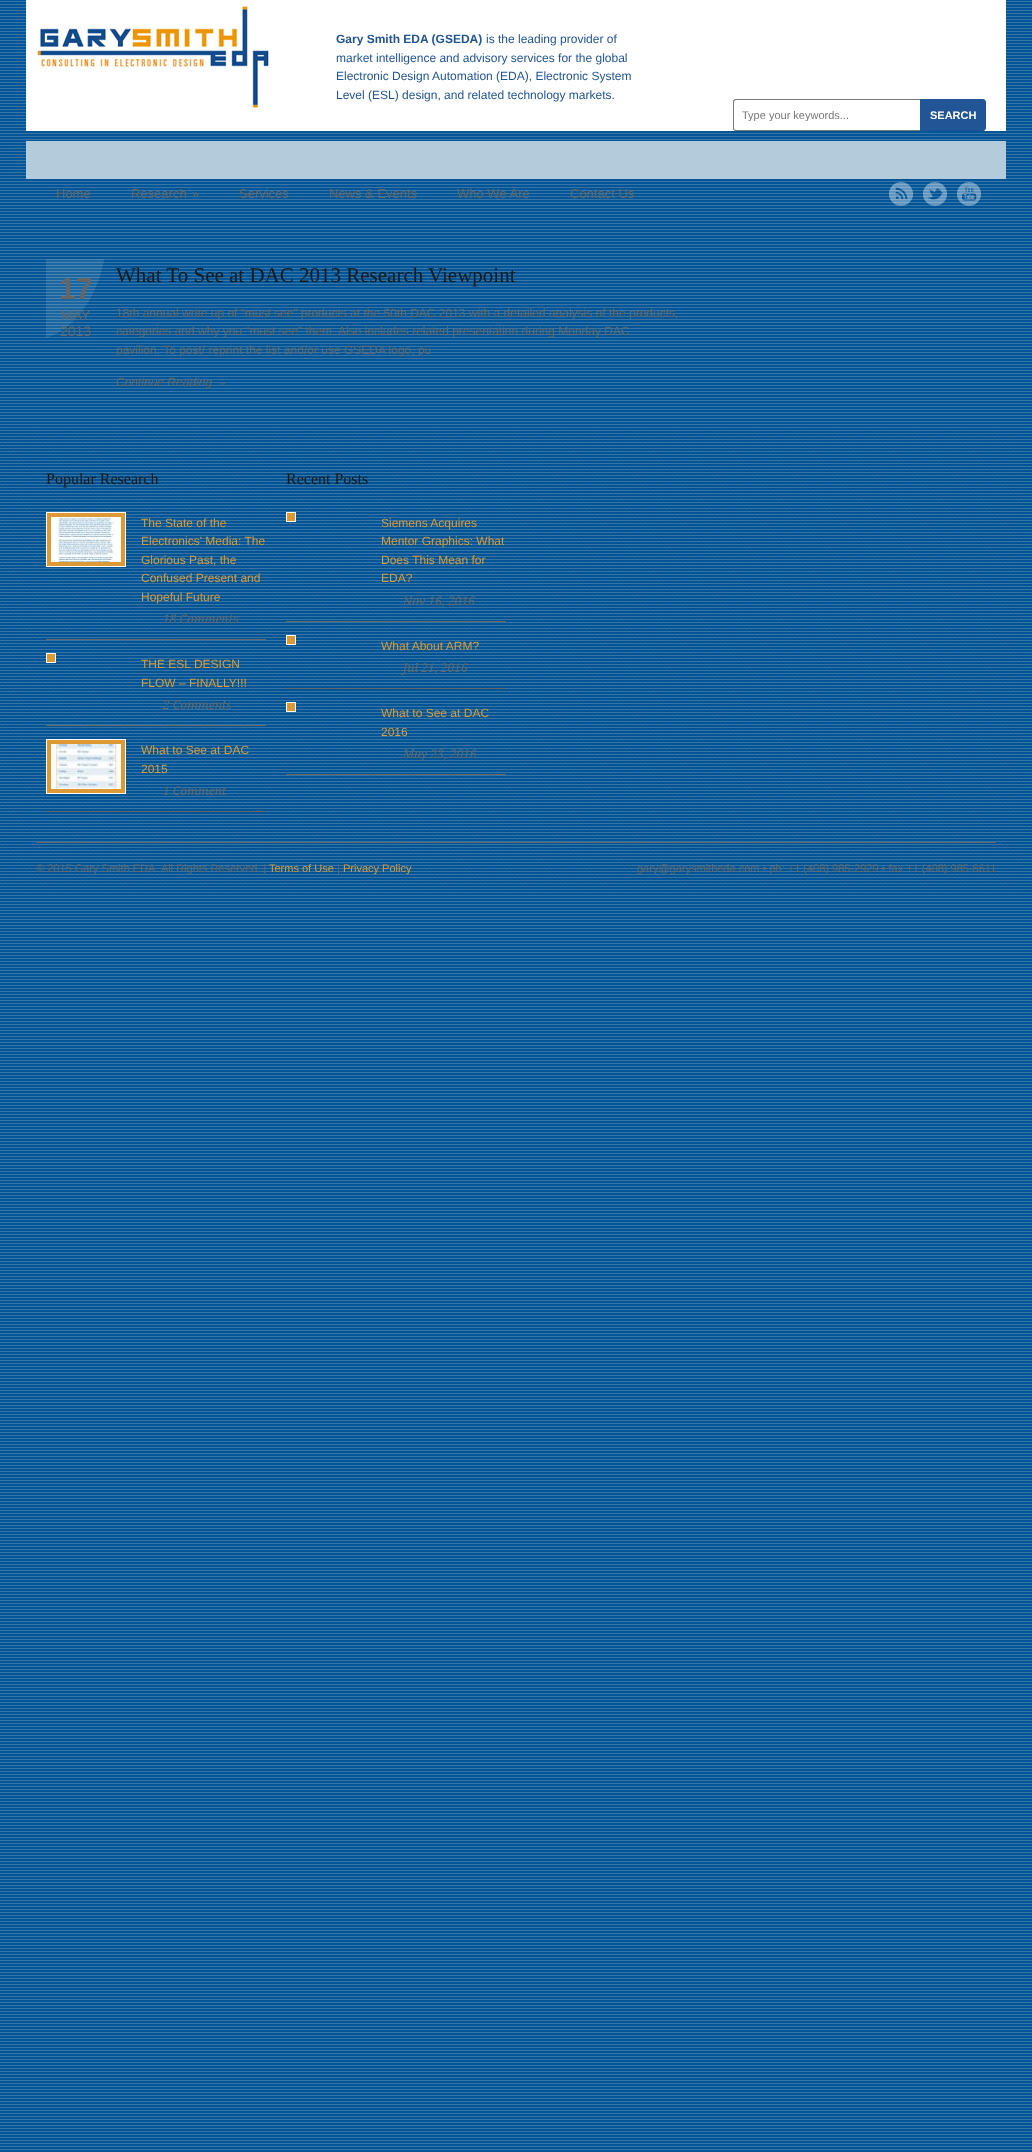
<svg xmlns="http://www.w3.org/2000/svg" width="1032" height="2152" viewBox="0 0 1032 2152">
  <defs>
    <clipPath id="clip1"><rect x="742" y="109" width="178" height="12"/></clipPath>
  </defs>
  <rect width="100%" height="100%" fill="rgb(255,255,255)"/>
  <image x="0" y="0" width="1032" height="2152" href="pic1.png"/>
  <rect x="26" y="0" width="980" height="131" fill="rgb(255,255,255)"/>
  <image x="37" y="5" width="233" height="103" href="pic2.png"/>
  <text x="336" y="43" font-family="Liberation Sans" font-size="12" font-weight="bold" fill="rgb(33,85,150)">Gary Smith EDA (GSEDA)</text>
  <g font-family="Liberation Sans" font-size="12" fill="rgb(33,85,150)">
    <text x="486" y="43">is the leading provider of</text>
    <text>
      <tspan x="336" y="62">market intelligence and advisory services for the global</tspan>
      <tspan x="336" y="80">Electronic Design Automation (EDA), Electronic System</tspan>
      <tspan x="336" y="99">Level (ESL) design, and related technology markets.</tspan>
    </text>
  </g>
  <path d="M736 99H937V131H736C734 131 733 130 733 128V102C733 100 734 99 736 99ZM736 100H937V130H736C735 130 734 129 734 128V102C734 101 735 100 736 100Z" fill="rgb(119,119,119)" fill-rule="evenodd"/>
  <g clip-path="url(#clip1)">
    <text x="742" y="119" font-family="Liberation Sans" font-size="11" fill="rgb(119,119,119)">Type your keywords...</text>
  </g>
  <path d="M920 99H983C984.5 99 986 100.5 986 102V128C986 129.5 984.5 131 983 131H920Z" fill="rgb(33,85,150)"/>
  <text x="930" y="119" font-family="Liberation Sans" font-size="11" font-weight="bold" fill="rgb(255,255,255)">SEARCH</text>
  <rect x="26" y="141" width="980" height="38" fill="rgb(180,203,220)"/>
  <g font-family="Liberation Sans" font-size="13" fill="rgb(102,102,102)">
    <text x="56" y="198">Home</text>
    <text x="131" y="198">Research</text>
    <text x="192" y="198">»</text>
    <text x="239" y="198">Services</text>
    <text x="329" y="198">News &amp; Events</text>
    <text x="457" y="198">Who We Are</text>
    <text x="570" y="198">Contact Us</text>
  </g>
  <image x="889" y="182" width="24" height="24" href="pic3.png"/>
  <image x="923" y="182" width="24" height="24" href="pic4.png"/>
  <image x="957" y="182" width="24" height="24" href="pic5.png"/>
  <image x="46" y="259" width="58" height="79" href="pic6.png"/>
  <text x="59" y="299" font-family="Liberation Sans" font-size="30" font-weight="bold" fill="rgb(102,102,102)">17</text>
  <g font-family="Liberation Sans" font-size="14" fill="rgb(102,102,102)">
    <text x="61" y="320">MAY</text>
    <text x="60" y="336">2013</text>
  </g>
  <text x="116" y="282" font-family="Liberation Serif" font-size="21" fill="rgb(24,24,24)">What To See at DAC 2013 Research Viewpoint</text>
  <g font-family="Liberation Sans" font-size="12" fill="rgb(102,102,102)">
    <text>
      <tspan x="116" y="317">18th annual write up of “must see” products at the 50th DAC 2013 with a detailed analysis of the products,</tspan>
      <tspan x="116" y="335">categories and why you “must see” them. Also includes related presentation during Monday DAC</tspan>
      <tspan x="116" y="354">pavilion. To post/ reprint the list and/or use GSEDA logo, pu</tspan>
    </text>
  </g>
  <text x="116" y="386" font-family="Liberation Sans" font-size="12" font-style="italic" fill="rgb(102,102,102)">Continue Reading →</text>
  <image x="0" y="430" width="1032" height="464" href="pic7.png"/>
  <text x="46" y="484" font-family="Liberation Serif" font-size="16" fill="rgb(24,24,24)">Popular Research</text>
  <rect x="46" y="639" width="220" height="1" fill="rgb(102,102,102)"/>
  <rect x="46.5" y="512.5" width="79" height="54" fill="rgb(221,153,51)" stroke="rgb(255,255,255)"/>
  <image x="51" y="517" width="70" height="45" href="pic8.png"/>
  <g font-family="Liberation Sans" font-size="12" fill="rgb(221,153,51)">
    <text>
      <tspan x="141" y="527">The State of the</tspan>
      <tspan x="141" y="545">Electronics' Media: The</tspan>
      <tspan x="141" y="564">Glorious Past, the</tspan>
      <tspan x="141" y="582">Confused Present and</tspan>
      <tspan x="141" y="601">Hopeful Future</tspan>
    </text>
  </g>
  <text x="163" y="623" font-family="Droid Serif" font-size="12" font-style="italic" fill="rgb(102,102,102)">18 Comments</text>
  <rect x="46" y="725" width="220" height="1" fill="rgb(102,102,102)"/>
  <rect x="46.5" y="653.5" width="9" height="9" fill="rgb(221,153,51)" stroke="rgb(255,255,255)"/>
  <g font-family="Liberation Sans" font-size="12" fill="rgb(221,153,51)">
    <text>
      <tspan x="141" y="668">THE ESL DESIGN</tspan>
      <tspan x="141" y="687">FLOW – FINALLY!!!</tspan>
    </text>
  </g>
  <text x="163" y="709" font-family="Droid Serif" font-size="12" font-style="italic" fill="rgb(102,102,102)">2 Comments</text>
  <rect x="46" y="811" width="220" height="1" fill="rgb(102,102,102)"/>
  <rect x="46.5" y="739.5" width="79" height="54" fill="rgb(221,153,51)" stroke="rgb(255,255,255)"/>
  <image x="51" y="744" width="70" height="45" href="pic9.png"/>
  <g font-family="Liberation Sans" font-size="12" fill="rgb(221,153,51)">
    <text>
      <tspan x="141" y="754">What to See at DAC</tspan>
      <tspan x="141" y="773">2015</tspan>
    </text>
  </g>
  <text x="163" y="795" font-family="Droid Serif" font-size="12" font-style="italic" fill="rgb(102,102,102)">1 Comment</text>
  <text x="286" y="484" font-family="Liberation Serif" font-size="16" fill="rgb(24,24,24)">Recent Posts</text>
  <rect x="286" y="621" width="220" height="1" fill="rgb(102,102,102)"/>
  <rect x="286.5" y="512.5" width="9" height="9" fill="rgb(221,153,51)" stroke="rgb(255,255,255)"/>
  <g font-family="Liberation Sans" font-size="12" fill="rgb(221,153,51)">
    <text>
      <tspan x="381" y="527">Siemens Acquires</tspan>
      <tspan x="381" y="545">Mentor Graphics: What</tspan>
      <tspan x="381" y="564">Does This Mean for</tspan>
      <tspan x="381" y="582">EDA?</tspan>
    </text>
  </g>
  <text x="403" y="605" font-family="Droid Serif" font-size="12" font-style="italic" fill="rgb(102,102,102)">Nov 16, 2016</text>
  <rect x="286" y="688" width="220" height="1" fill="rgb(102,102,102)"/>
  <rect x="286.5" y="635.5" width="9" height="9" fill="rgb(221,153,51)" stroke="rgb(255,255,255)"/>
  <text x="381" y="650" font-family="Liberation Sans" font-size="12" fill="rgb(221,153,51)">What About ARM?</text>
  <text x="403" y="672" font-family="Droid Serif" font-size="12" font-style="italic" fill="rgb(102,102,102)">Jul 21, 2016</text>
  <rect x="286" y="774" width="220" height="1" fill="rgb(102,102,102)"/>
  <rect x="286.5" y="702.5" width="9" height="9" fill="rgb(221,153,51)" stroke="rgb(255,255,255)"/>
  <g font-family="Liberation Sans" font-size="12" fill="rgb(221,153,51)">
    <text>
      <tspan x="381" y="717">What to See at DAC</tspan>
      <tspan x="381" y="736">2016</tspan>
    </text>
  </g>
  <text x="403" y="758" font-family="Droid Serif" font-size="12" font-style="italic" fill="rgb(102,102,102)">May 23, 2016</text>
  <rect x="36" y="842" width="960" height="1" fill="rgb(102,102,102)"/>
  <text x="36" y="872" font-family="Liberation Sans" font-size="11" fill="rgb(102,102,102)">© 2015 Gary Smith EDA. All Rights Reserved. |</text>
  <text x="269" y="872" font-family="Liberation Sans" font-size="11" fill="rgb(221,153,51)">Terms of Use</text>
  <text x="337" y="872" font-family="Liberation Sans" font-size="11" fill="rgb(102,102,102)">|</text>
  <text x="343" y="872" font-family="Liberation Sans" font-size="11" fill="rgb(221,153,51)">Privacy Policy</text>
  <text x="637" y="872" font-family="Liberation Sans" font-size="11" fill="rgb(102,102,102)">gary@garysmitheda.com • ph: +1 (408) 985-2929 • fax +1 (408) 985-6611</text>
</svg>
